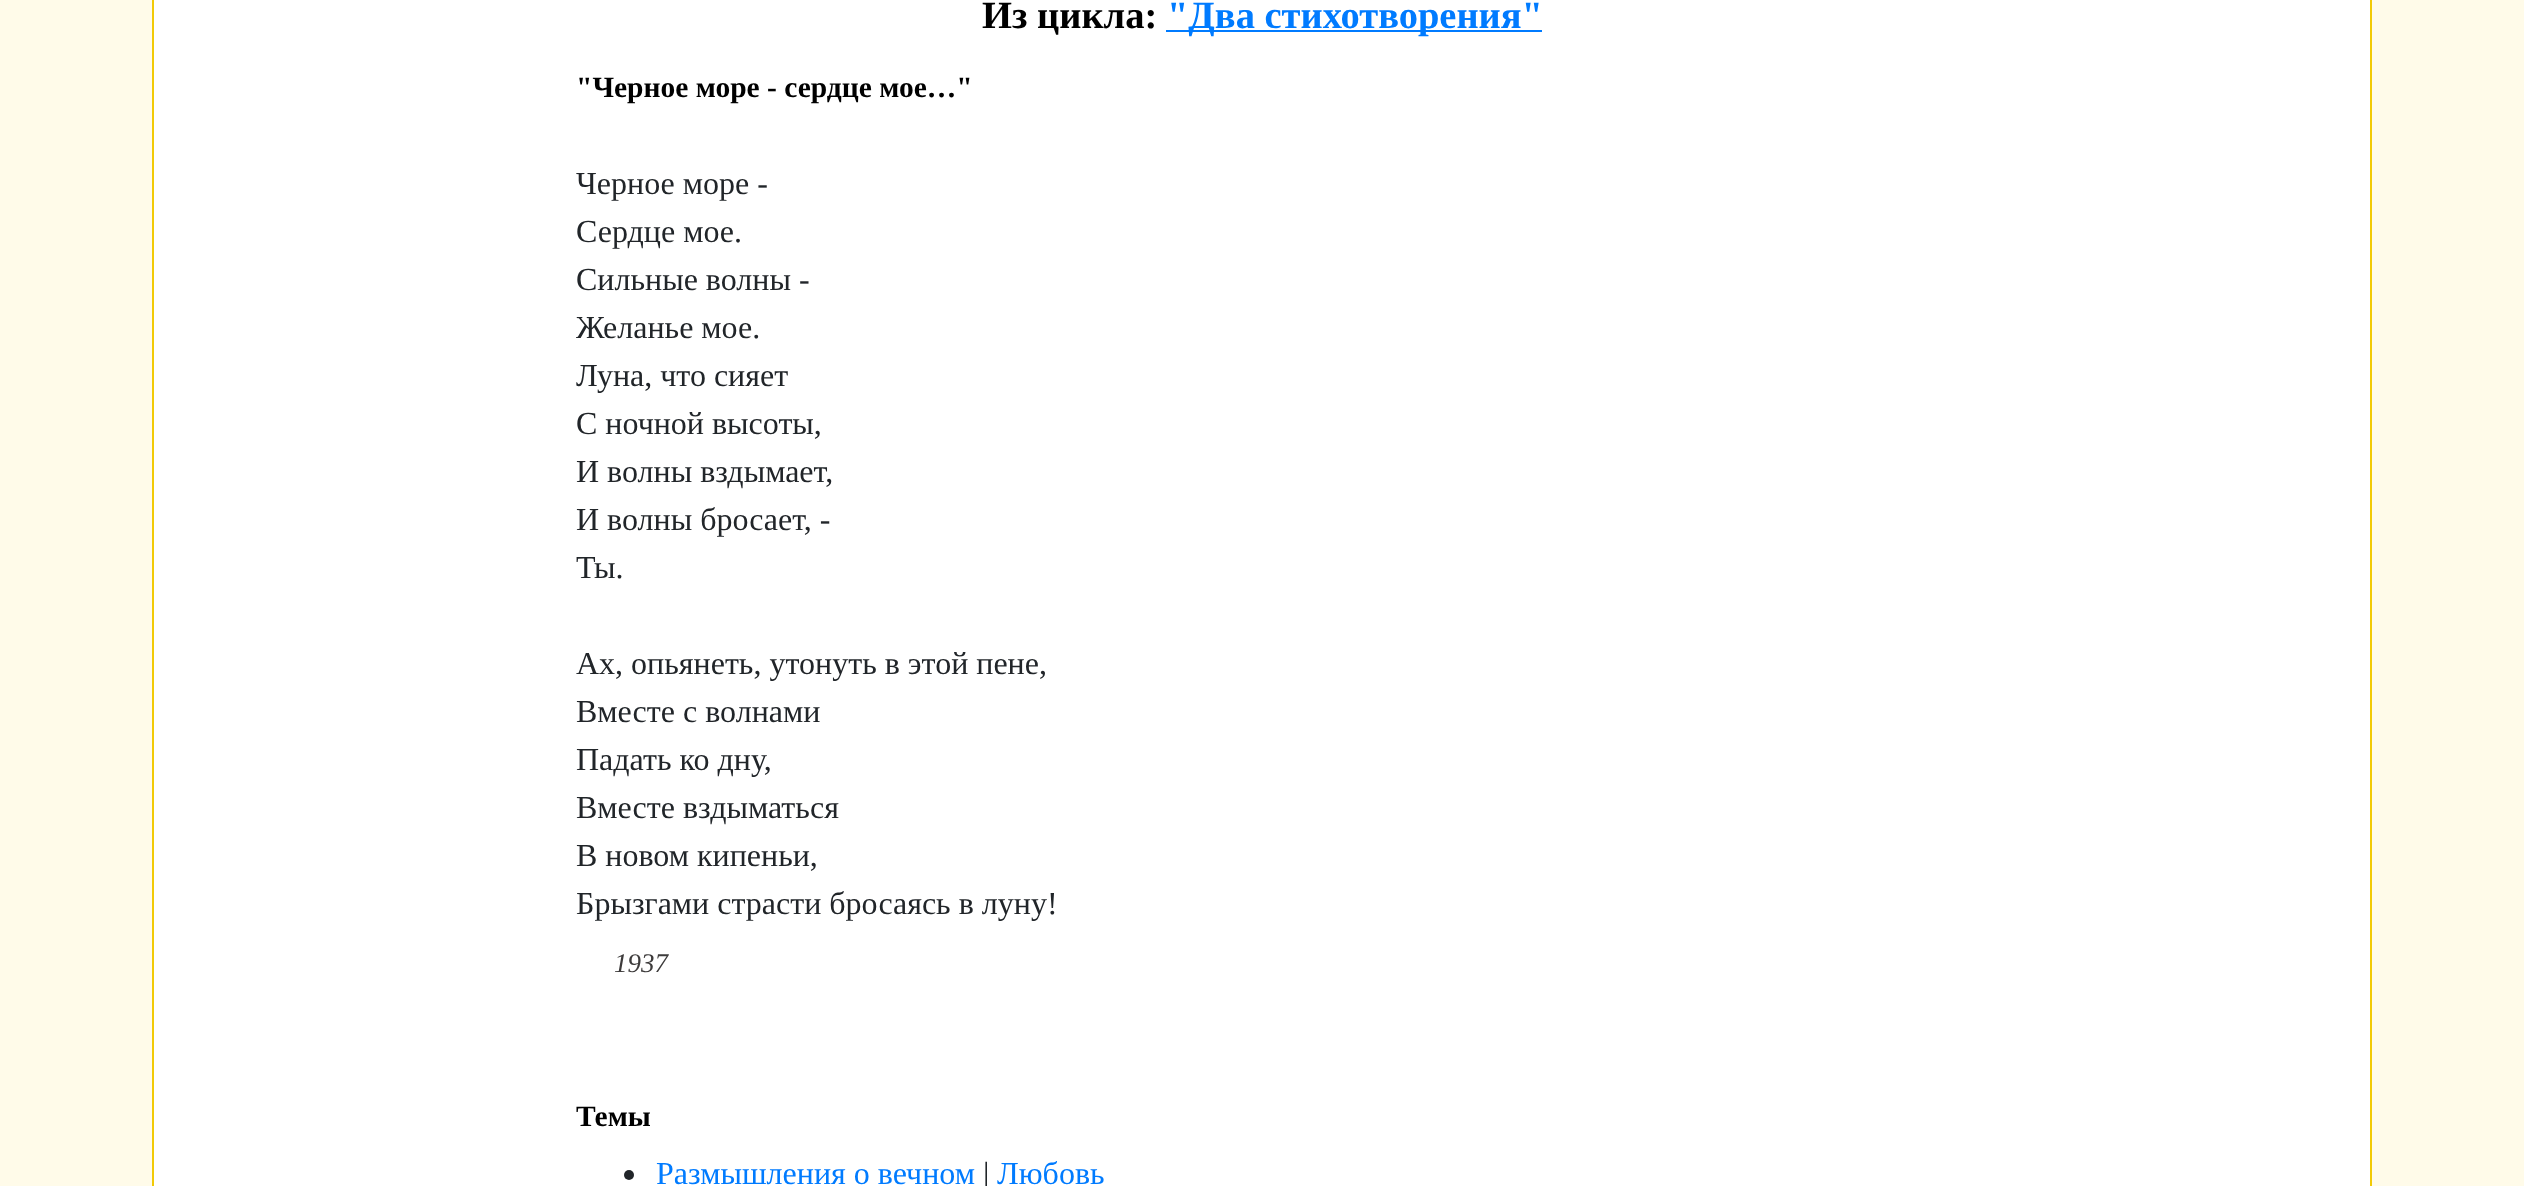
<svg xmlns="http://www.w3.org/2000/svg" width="2524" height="1186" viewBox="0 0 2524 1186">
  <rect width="100%" height="100%" fill="rgb(255,251,233)"/>
  <rect x="153" y="-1" width="2218" height="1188" fill="rgb(255,255,255)" stroke="rgb(242,202,6)" stroke-width="2"/>
  <text x="982" y="28" font-family="Liberation Serif" font-size="38.5" font-weight="bold" fill="rgb(0,0,0)">Из цикла:</text>
  <rect x="1166" y="30" width="376" height="2" fill="rgb(0,123,255)"/>
  <text x="1167" y="28" font-family="Liberation Serif" font-size="38.5" font-weight="bold" fill="rgb(0,123,255)">"Два стихотворения"</text>
  <text x="576" y="97" font-family="Liberation Serif" font-size="29.5" font-weight="bold" fill="rgb(0,0,0)">"Черное море - сердце мое…"</text>
  <g font-family="Liberation Serif" font-size="32" fill="rgb(33,37,41)">
    <text>
      <tspan x="576" y="194">Черное море -</tspan>
      <tspan x="576" y="242">Сердце мое.</tspan>
      <tspan x="576" y="290">Сильные волны -</tspan>
      <tspan x="576" y="338">Желанье мое.</tspan>
      <tspan x="576" y="386">Луна, что сияет</tspan>
      <tspan x="576" y="434">С ночной высоты,</tspan>
      <tspan x="576" y="482">И волны вздымает,</tspan>
      <tspan x="576" y="530">И волны бросает, -</tspan>
      <tspan x="576" y="578">Ты.</tspan>
    </text>
    <text>
      <tspan x="576" y="674">Ах, опьянеть, утонуть в этой пене,</tspan>
      <tspan x="576" y="722">Вместе с волнами</tspan>
      <tspan x="576" y="770">Падать ко дну,</tspan>
      <tspan x="576" y="818">Вместе вздыматься</tspan>
      <tspan x="576" y="866">В новом кипеньи,</tspan>
      <tspan x="576" y="914">Брызгами страсти бросаясь в луну!</tspan>
    </text>
  </g>
  <text x="614" y="972" font-family="Liberation Serif" font-size="27" font-style="italic" fill="rgb(61,59,59)">1937</text>
  <text x="576" y="1126" font-family="Liberation Serif" font-size="29.5" font-weight="bold" fill="rgb(0,0,0)">Темы</text>
  <circle cx="629" cy="1175" r="5" fill="rgb(33,37,41)"/>
  <text x="656" y="1184" font-family="Liberation Serif" font-size="32" fill="rgb(0,123,255)">Размышления о вечном</text>
  <text x="983" y="1184" font-family="Liberation Serif" font-size="32" fill="rgb(33,37,41)">|</text>
  <text x="997" y="1184" font-family="Liberation Serif" font-size="32" fill="rgb(0,123,255)">Любовь</text>
</svg>
